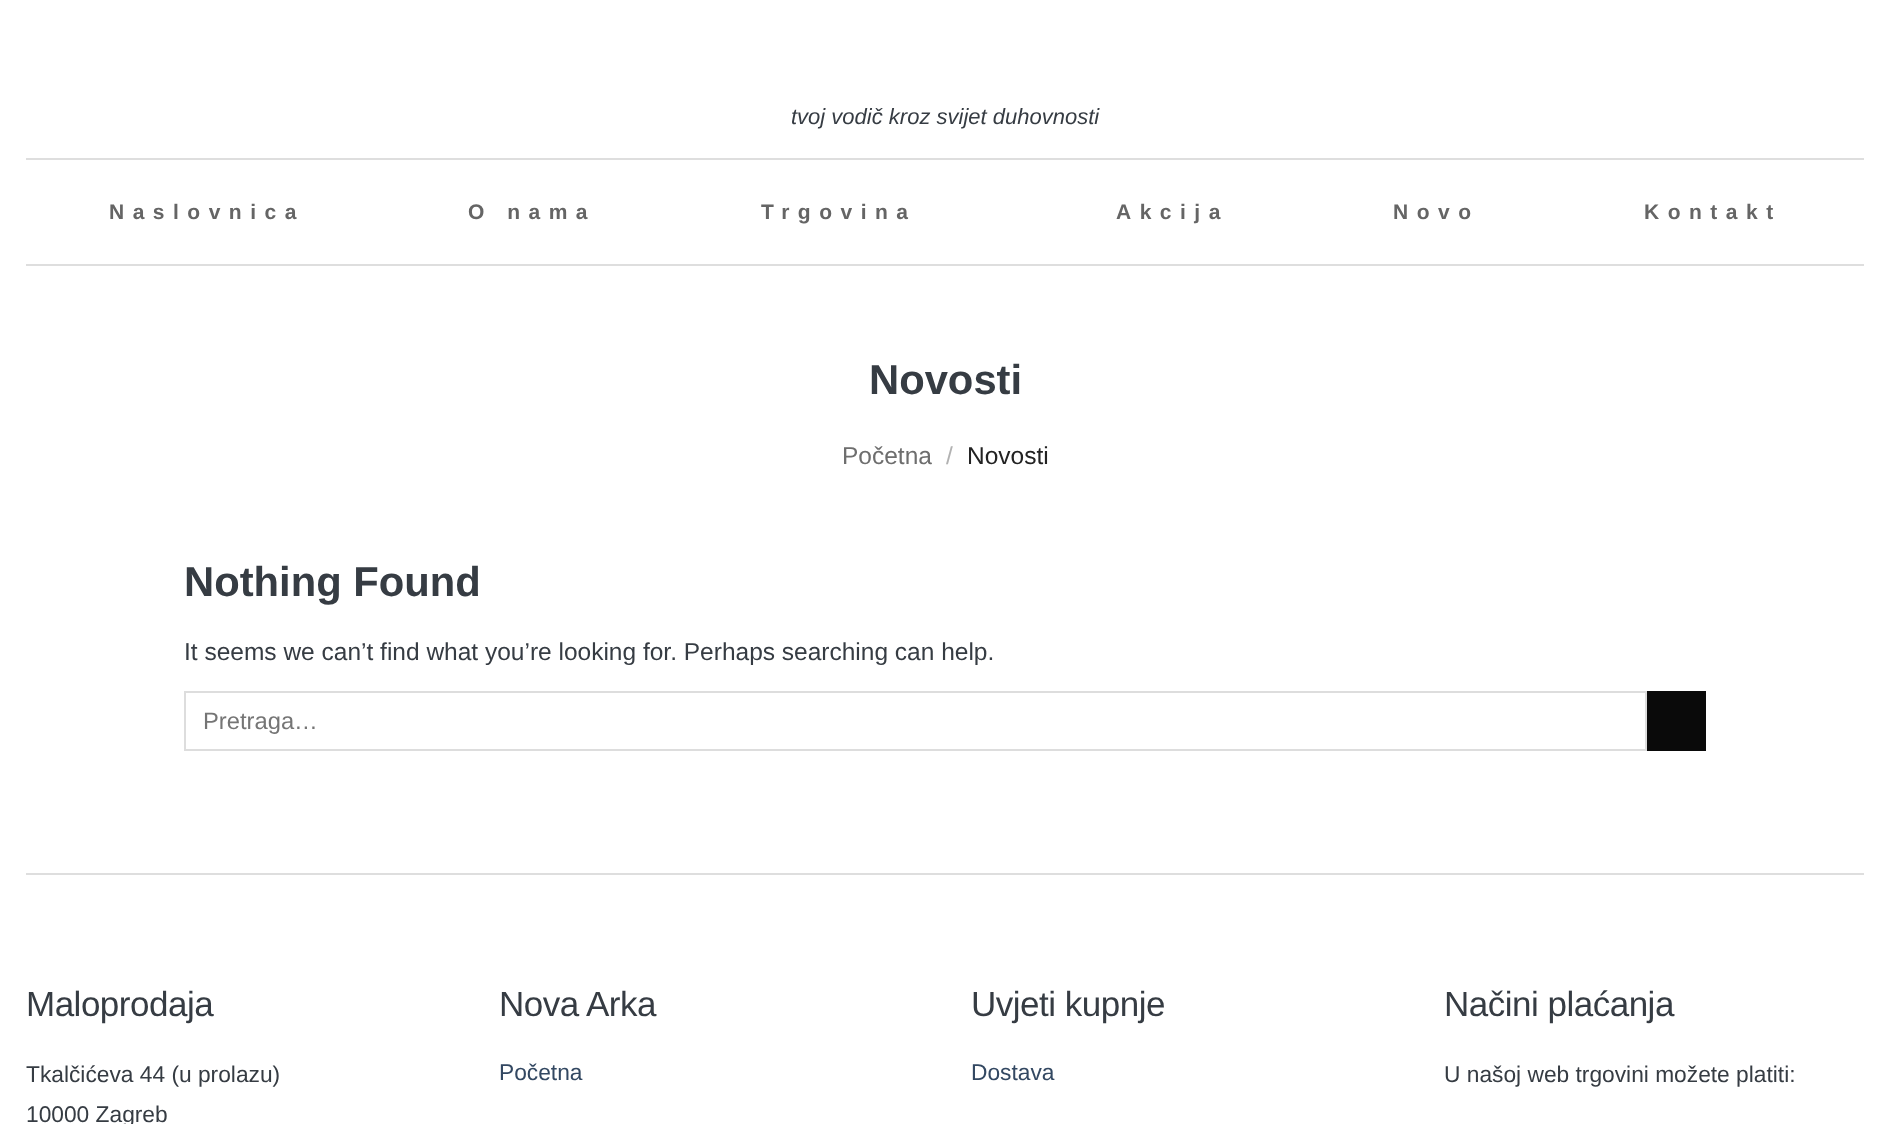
<svg xmlns="http://www.w3.org/2000/svg" width="1890" height="1124" viewBox="0 0 1890 1124">
  <rect width="100%" height="100%" fill="rgb(255,255,255)"/>
  <text x="791" y="124" font-family="Liberation Sans" font-size="22" font-style="italic" fill="rgb(54,60,67)">tvoj vodič kroz svijet duhovnosti</text>
  <rect x="26" y="158" width="1838" height="2" fill="rgb(222,222,222)"/>
  <rect x="26" y="264" width="1838" height="2" fill="rgb(222,222,222)"/>
  <g font-family="Liberation Sans" font-size="21" font-weight="bold" letter-spacing="8.5" fill="rgb(101,101,101)">
    <text x="109" y="219">Naslovnica</text>
    <text x="468" y="219">O nama</text>
    <text x="761" y="219">Trgovina</text>
    <text x="1116" y="219">Akcija</text>
    <text x="1393" y="219">Novo</text>
    <text x="1644" y="219">Kontakt</text>
  </g>
  <text x="869" y="394" font-family="Liberation Sans" font-size="41.75" font-weight="bold" fill="rgb(54,60,67)">Novosti</text>
  <text x="842" y="464" font-family="Liberation Sans" font-size="24.5" fill="rgb(110,110,110)">Početna</text>
  <text x="946" y="464" font-family="Liberation Sans" font-size="24.5" fill="rgb(178,178,178)">/</text>
  <text x="967" y="464" font-family="Liberation Sans" font-size="24.5" fill="rgb(34,34,34)">Novosti</text>
  <text x="184" y="596" font-family="Liberation Sans" font-size="41.75" font-weight="bold" fill="rgb(54,60,67)">Nothing Found</text>
  <text x="184" y="660" font-family="Liberation Sans" font-size="24.5" fill="rgb(54,60,67)">It seems we can’t find what you’re looking for. Perhaps searching can help.</text>
  <rect x="185" y="692" width="1461" height="58" fill="none" stroke="rgb(221,221,221)" stroke-width="2"/>
  <text x="203" y="729" font-family="Liberation Sans" font-size="23.75" fill="rgb(117,117,117)">Pretraga…</text>
  <rect x="1647" y="691" width="59" height="60" fill="rgb(10,10,10)"/>
  <rect x="26" y="873" width="1838" height="2" fill="rgb(222,222,222)"/>
  <text x="26" y="1016" font-family="Liberation Sans" font-size="35" letter-spacing="-0.5" fill="rgb(54,60,67)">Maloprodaja</text>
  <g font-family="Liberation Sans" font-size="22.75" fill="rgb(54,60,67)">
    <text>
      <tspan x="26" y="1082">Tkalčićeva 44 (u prolazu)</tspan>
      <tspan x="26" y="1122">10000 Zagreb</tspan>
    </text>
  </g>
  <text x="499" y="1016" font-family="Liberation Sans" font-size="35" letter-spacing="-0.5" fill="rgb(54,60,67)">Nova Arka</text>
  <text x="499" y="1080" font-family="Liberation Sans" font-size="22.75" fill="rgb(51,72,98)">Početna</text>
  <text x="971" y="1016" font-family="Liberation Sans" font-size="35" letter-spacing="-0.5" fill="rgb(54,60,67)">Uvjeti kupnje</text>
  <text x="971" y="1080" font-family="Liberation Sans" font-size="22.75" fill="rgb(51,72,98)">Dostava</text>
  <text x="1444" y="1016" font-family="Liberation Sans" font-size="35" letter-spacing="-0.5" fill="rgb(54,60,67)">Načini plaćanja</text>
  <text x="1444" y="1082" font-family="Liberation Sans" font-size="22.75" fill="rgb(54,60,67)">U našoj web trgovini možete platiti:</text>
</svg>
